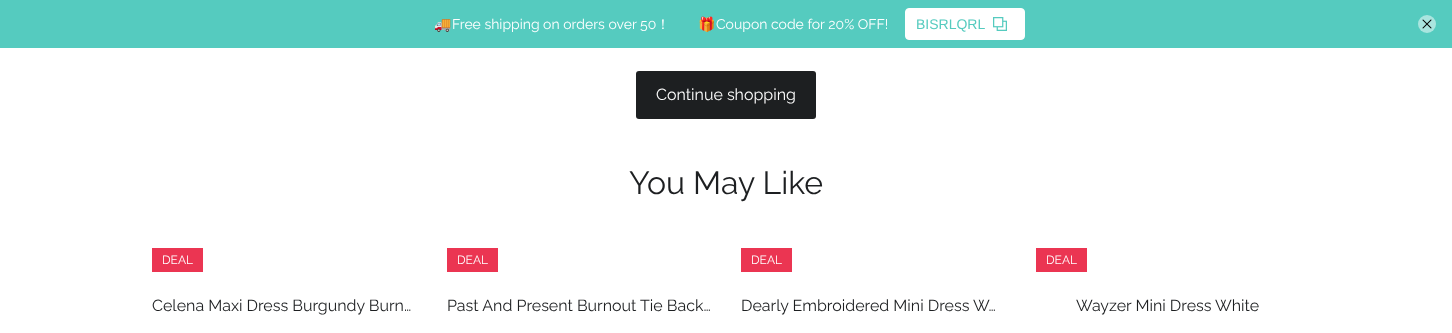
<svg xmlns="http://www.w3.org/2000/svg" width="1452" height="333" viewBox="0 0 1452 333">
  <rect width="100%" height="100%" fill="rgb(255,255,255)"/>
  <rect x="0" y="0" width="1452" height="48" fill="rgb(85,203,191)"/>
  <text x="434" y="29" font-family="Noto Color Emoji" font-size="14" fill="rgb(255,255,255)">🚚</text>
  <text x="452" y="29" font-family="Raleway" font-size="14" font-weight="100" fill="rgb(255,255,255)">Free shipping on orders over 50</text>
  <text x="656" y="29" font-family="WenQuanYi Zen Hei" font-size="14" font-weight="500" fill="rgb(255,255,255)">！</text>
  <text x="698" y="29" font-family="Noto Color Emoji" font-size="14" fill="rgb(255,255,255)">🎁</text>
  <text x="716" y="29" font-family="Raleway" font-size="14" font-weight="100" fill="rgb(255,255,255)">Coupon code for 20% OFF!</text>
  <rect x="905.5" y="8.5" width="119" height="31" rx="3.5" fill="rgb(255,255,255)" stroke="rgb(255,255,255)"/>
  <text x="916" y="29" font-family="Liberation Sans" font-size="14" fill="rgb(85,203,191)">BISRLQRL</text>
  <image x="993" y="17" width="14" height="14" href="pic1.png"/>
  <circle cx="1427" cy="24" r="9" fill="rgb(170,229,223)"/>
  <image x="1422" y="19" width="10" height="10" href="pic2.png"/>
  <rect x="636" y="71" width="180" height="48" rx="3" fill="rgb(29,31,33)"/>
  <text x="656" y="100" font-family="Raleway" font-size="16" font-weight="100" fill="rgb(255,255,255)">Continue shopping</text>
  <text x="629" y="194" font-family="Raleway" font-size="32" font-weight="100" fill="rgb(29,31,33)">You May Like</text>
  <rect x="152" y="248" width="51" height="24" fill="rgb(235,53,82)"/>
  <text x="162" y="264" font-family="Raleway" font-size="12" font-weight="100" fill="rgb(255,255,255)">DEAL</text>
  <text x="152" y="311" font-family="Raleway" font-size="16" font-weight="100" fill="rgb(29,31,33)">Celena Maxi Dress Burgundy Burn…</text>
  <rect x="447" y="248" width="51" height="24" fill="rgb(235,53,82)"/>
  <text x="457" y="264" font-family="Raleway" font-size="12" font-weight="100" fill="rgb(255,255,255)">DEAL</text>
  <text x="447" y="311" font-family="Raleway" font-size="16" font-weight="100" fill="rgb(29,31,33)">Past And Present Burnout Tie Back…</text>
  <rect x="741" y="248" width="51" height="24" fill="rgb(235,53,82)"/>
  <text x="751" y="264" font-family="Raleway" font-size="12" font-weight="100" fill="rgb(255,255,255)">DEAL</text>
  <text x="741" y="311" font-family="Raleway" font-size="16" font-weight="100" fill="rgb(29,31,33)">Dearly Embroidered Mini Dress W…</text>
  <rect x="1036" y="248" width="51" height="24" fill="rgb(235,53,82)"/>
  <text x="1046" y="264" font-family="Raleway" font-size="12" font-weight="100" fill="rgb(255,255,255)">DEAL</text>
  <text x="1076" y="311" font-family="Raleway" font-size="16" font-weight="100" fill="rgb(29,31,33)">Wayzer Mini Dress White</text>
</svg>
